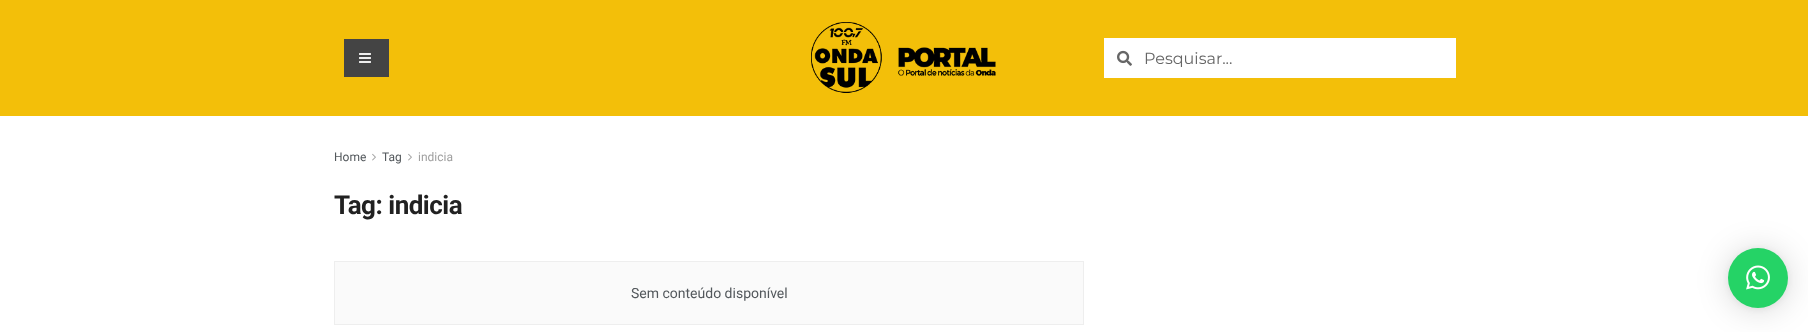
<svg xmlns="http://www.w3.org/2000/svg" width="1808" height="332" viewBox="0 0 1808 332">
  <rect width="100%" height="100%" fill="rgb(255,255,255)"/>
  <rect x="0" y="0" width="1808" height="116" fill="rgb(243,191,9)"/>
  <rect x="344" y="39" width="45" height="38" fill="rgb(68,68,68)"/>
  <image x="359" y="53" width="12" height="10" href="pic1.png"/>
  <image x="811" y="22" width="185" height="71" href="pic2.png"/>
  <rect x="1104" y="38" width="352" height="40" fill="rgb(255,255,255)"/>
  <image x="1117" y="50" width="15" height="16" href="pic3.png"/>
  <text x="1144" y="64" font-family="Montserrat" font-size="16" fill="rgb(102,102,102)">Pesquisar...</text>
  <text x="334" y="161" font-family="Roboto" font-size="12" fill="rgb(83,88,92)">Home</text>
  <image x="372" y="153" width="4" height="8" href="pic4.png"/>
  <text x="382" y="161" font-family="Roboto" font-size="12" fill="rgb(83,88,92)">Tag</text>
  <image x="408" y="153" width="4" height="8" href="pic4.png"/>
  <text x="418" y="161" font-family="Roboto" font-size="12" fill="rgb(160,160,160)">indicia</text>
  <text x="334" y="214" font-family="Roboto" font-size="26" font-weight="bold" letter-spacing="-0.5" fill="rgb(33,33,33)">Tag: indicia</text>
  <rect x="334.5" y="261.5" width="749" height="63" fill="rgb(250,250,250)" stroke="rgb(238,238,238)"/>
  <text x="631" y="298" font-family="Roboto" font-size="14" fill="rgb(83,88,92)">Sem conteúdo disponível</text>
  <rect x="1728" y="250" width="60" height="60" rx="30" fill="rgba(0,0,0,0.16)" filter="blur(16px)"/>
  <rect x="1728" y="249" width="60" height="60" rx="30" fill="rgba(0,0,0,0.06)" filter="blur(3px)"/>
  <circle cx="1758" cy="278" r="30" fill="rgb(37,211,102)"/>
  <image x="1746" y="265" width="24" height="25" href="pic5.png"/>
</svg>
